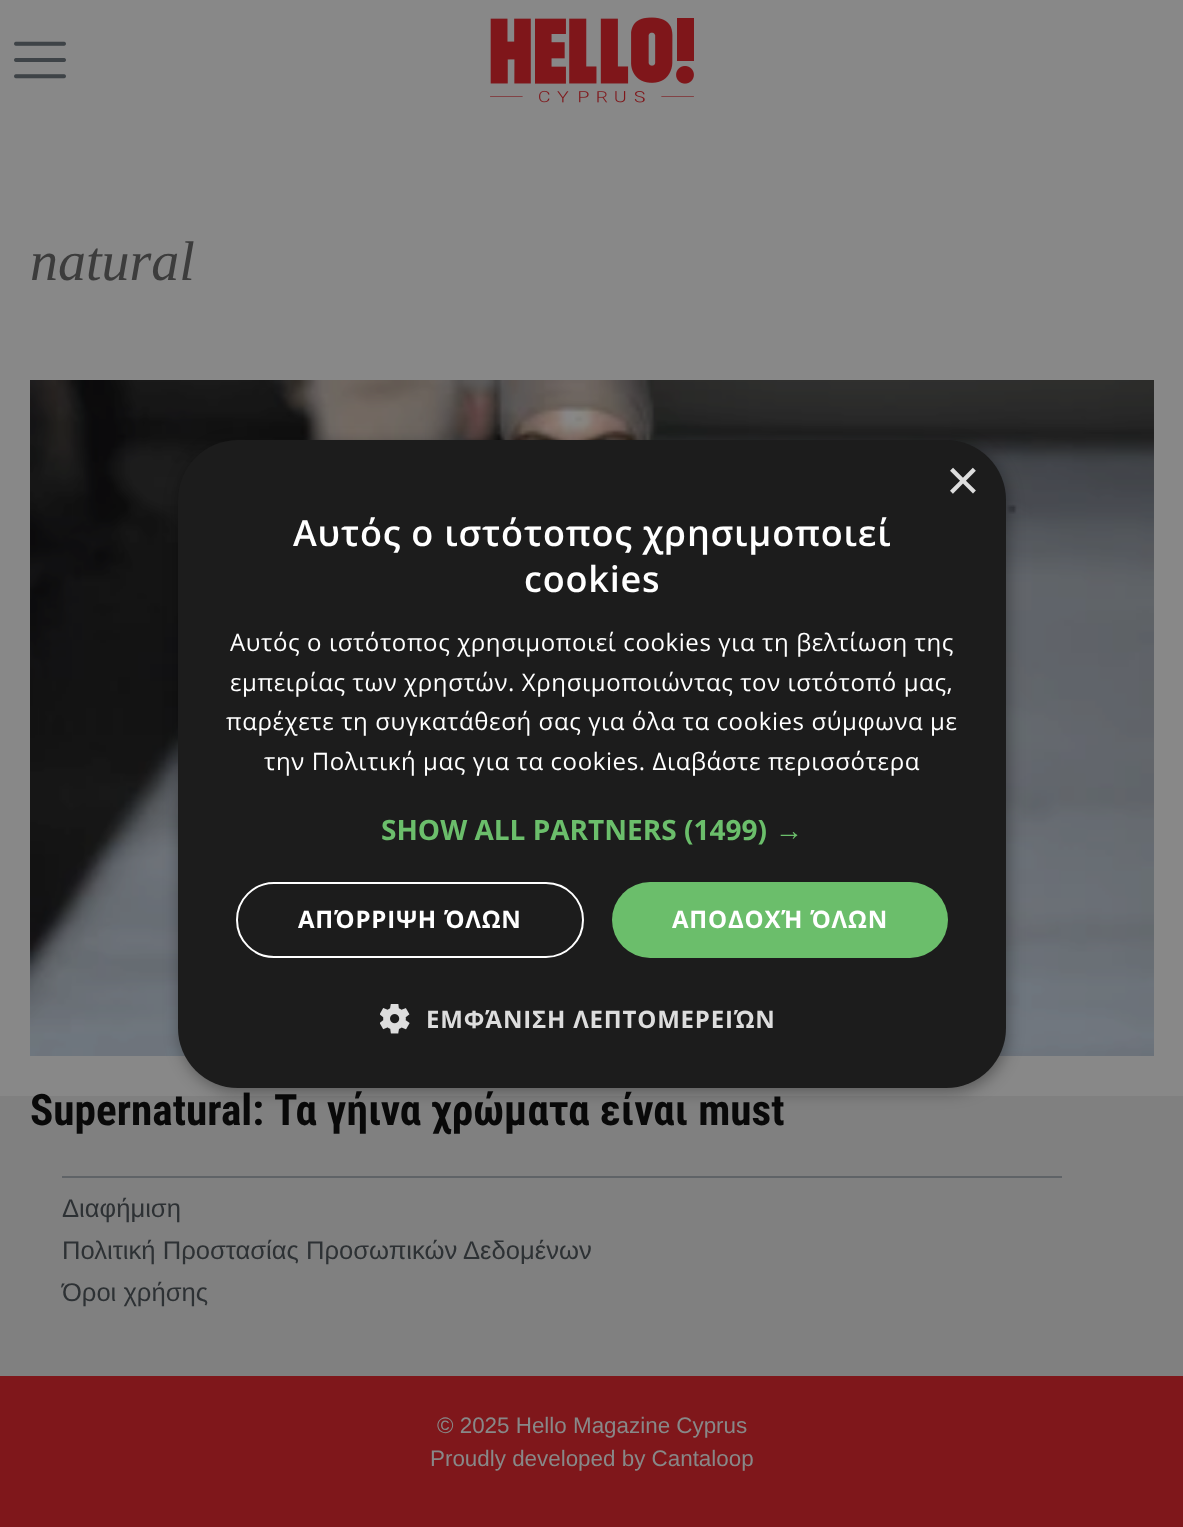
<svg xmlns="http://www.w3.org/2000/svg" width="1183" height="1527" viewBox="0 0 1183 1527">
  <rect width="100%" height="100%" fill="rgb(136,136,136)"/>
  <image x="14" y="41" width="52" height="38" href="pic1.png"/>
  <image x="490" y="17" width="204" height="86" href="pic2.png"/>
  <text x="30" y="280" font-family="Tinos" font-size="56" font-style="italic" fill="rgb(60,60,60)">natural</text>
  <image x="30" y="380" width="1124" height="676" href="pic3.png"/>
  <rect x="0" y="1096" width="1183" height="280" fill="rgb(128,128,128)"/>
  <text x="30" y="1125" font-family="Roboto Condensed" font-size="43.25" font-weight="bold" fill="rgb(9,9,9)">Supernatural: Τα γήινα χρώματα είναι must</text>
  <rect x="62" y="1176" width="1000" height="2" fill="rgb(95,99,103)"/>
  <g font-family="Liberation Sans" font-size="25.6" fill="rgb(45,49,52)">
    <text>
      <tspan x="62" y="1217">Διαφήμιση</tspan>
      <tspan x="62" y="1259">Πολιτική Προστασίας Προσωπικών Δεδομένων</tspan>
      <tspan x="62" y="1301">Όροι χρήσης</tspan>
    </text>
  </g>
  <rect x="0" y="1376" width="1183" height="151" fill="rgb(127,23,27)"/>
  <g font-family="Liberation Sans" font-size="22.4" fill="rgb(136,136,136)">
    <text x="437" y="1433">© 2025 Hello Magazine Cyprus</text>
    <text x="430" y="1466">Proudly developed by Cantaloop</text>
  </g>
  <rect x="180" y="444" width="828" height="648" rx="60" fill="rgba(0,0,0,0.35)" filter="blur(8px)"/>
  <rect x="178" y="440" width="828" height="648" rx="60" fill="rgb(28,28,28)"/>
  <text x="946" y="500" font-family="Liberation Sans" font-size="58" fill="rgb(221,221,221)">×</text>
  <g font-family="Open Sans" font-size="36" font-weight="600" letter-spacing="0.8" fill="rgb(255,255,255)">
    <text x="293" y="546">Αυτός ο ιστότοπος χρησιμοποιεί</text>
    <text x="524" y="592">cookies</text>
  </g>
  <g font-family="Open Sans" font-size="24" letter-spacing="0.6" fill="rgb(255,255,255)">
    <text>
      <tspan x="230" y="651">Αυτός ο ιστότοπος χρησιμοποιεί cookies για τη βελτίωση της</tspan>
      <tspan x="230" y="691">εμπειρίας των χρηστών. Χρησιμοποιώντας τον ιστότοπό μας,</tspan>
    </text>
    <text x="226" y="730">παρέχετε τη συγκατάθεσή σας για όλα τα cookies σύμφωνα με</text>
    <text x="264" y="770">την Πολιτική μας για τα cookies. Διαβάστε περισσότερα</text>
  </g>
  <text x="381" y="840" font-family="Open Sans" font-size="28" font-weight="bold" fill="rgb(107,190,107)">SHOW ALL PARTNERS (1499)</text>
  <text x="775" y="840" font-family="Liberation Sans" font-size="28" font-weight="bold" fill="rgb(107,190,107)">→</text>
  <rect x="237" y="883" width="346" height="74" rx="37" fill="none" stroke="rgb(255,255,255)" stroke-width="2"/>
  <text x="298" y="928" font-family="Open Sans" font-size="24" font-weight="bold" letter-spacing="0.8" fill="rgb(255,255,255)">ΑΠΌΡΡΙΨΗ ΌΛΩΝ</text>
  <rect x="612" y="882" width="336" height="76" rx="38" fill="rgb(107,190,107)"/>
  <text x="672" y="928" font-family="Open Sans" font-size="24" font-weight="bold" letter-spacing="0.8" fill="rgb(255,255,255)">ΑΠΟΔΟΧΉ ΌΛΩΝ</text>
  <image x="380" y="1004" width="30" height="30" href="pic4.png"/>
  <text x="426" y="1028" font-family="Open Sans" font-size="24" font-weight="bold" letter-spacing="0.8" fill="rgb(221,221,221)">ΕΜΦΆΝΙΣΗ ΛΕΠΤΟΜΕΡΕΙΏΝ</text>
</svg>
